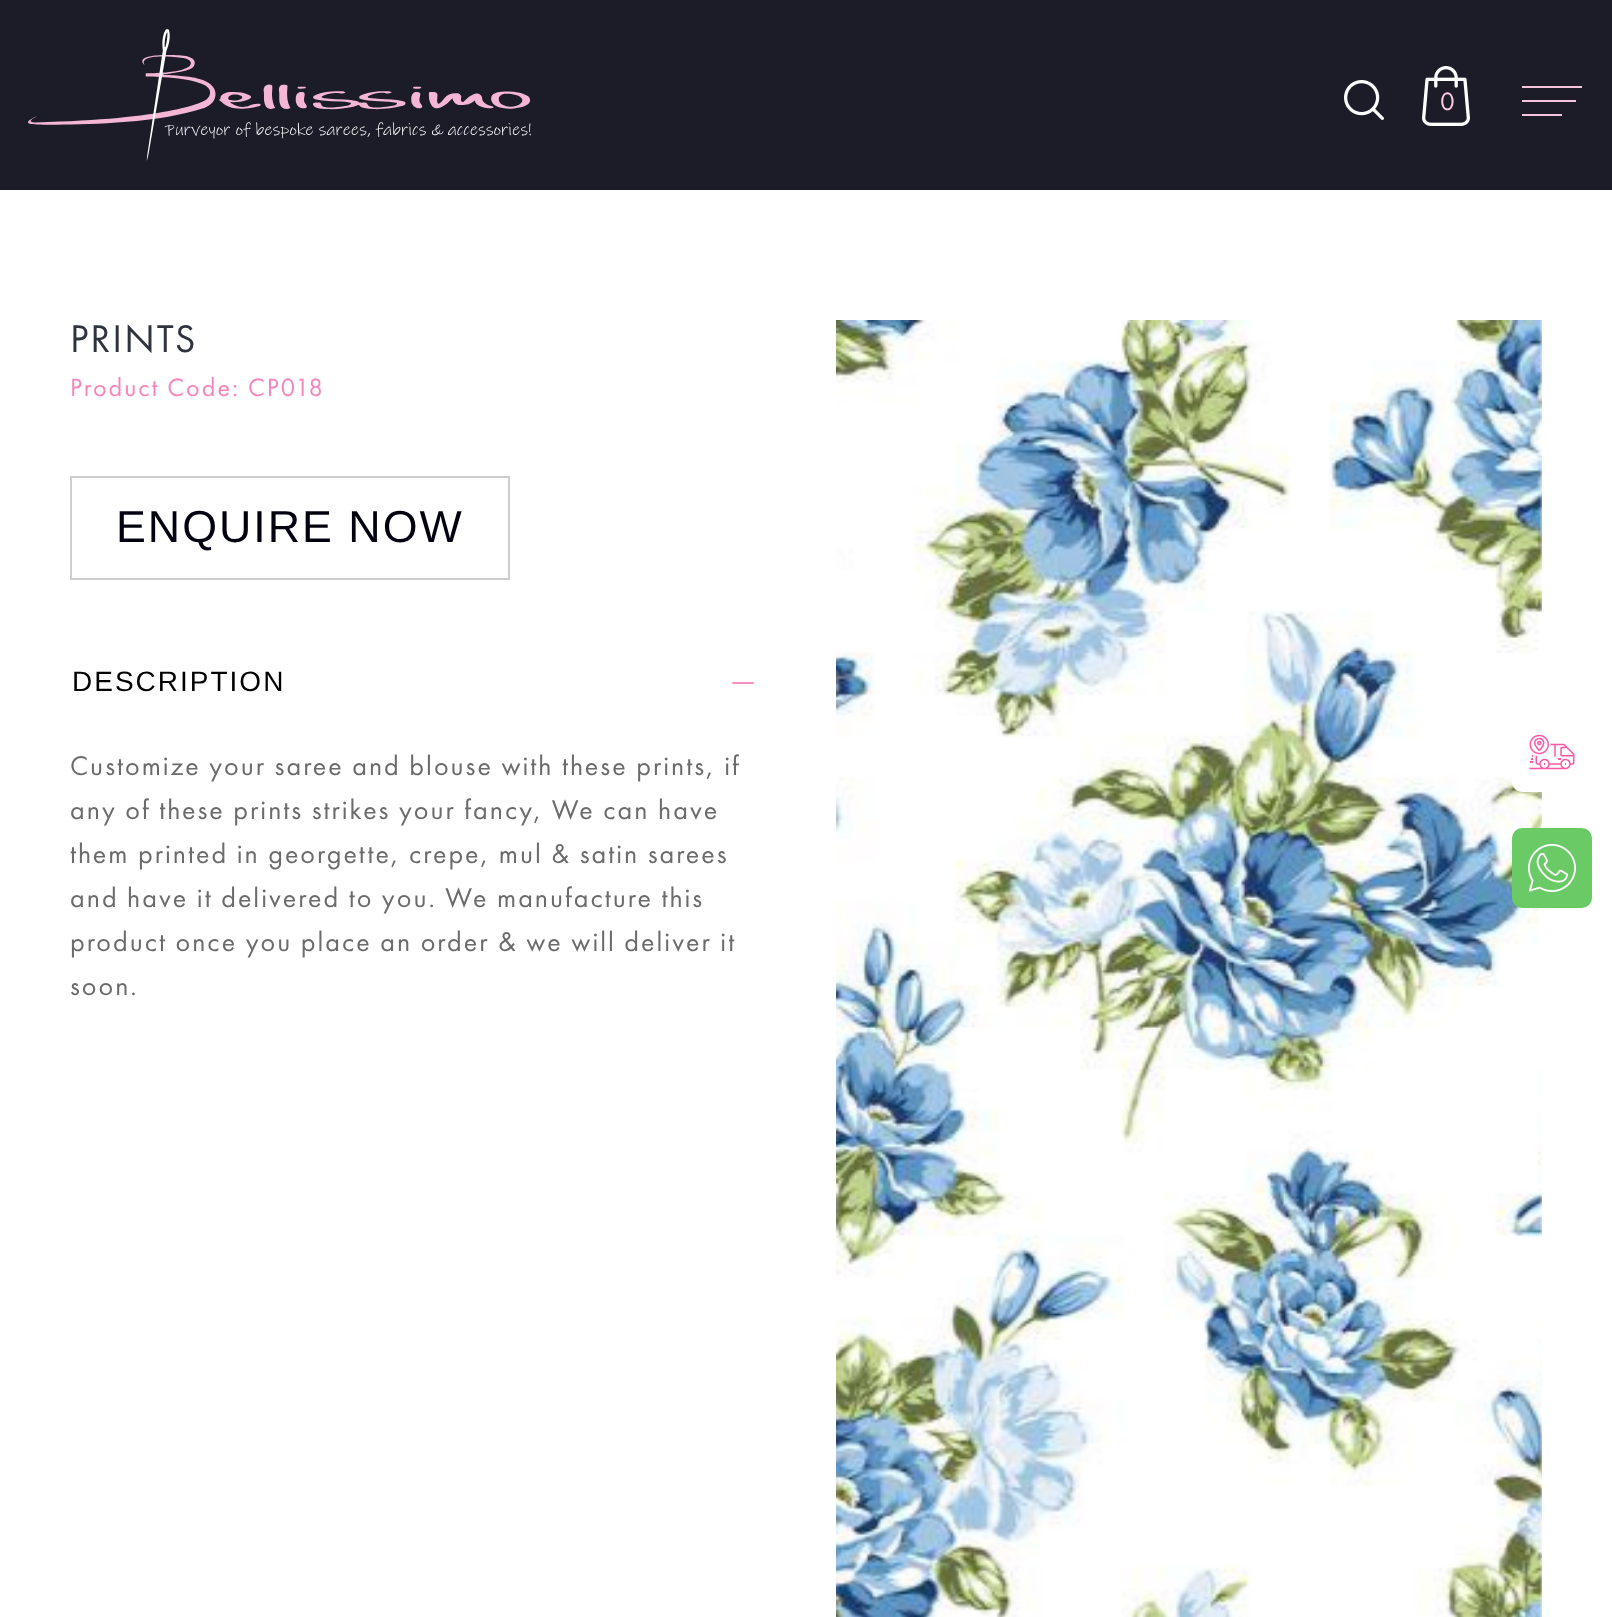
<svg xmlns="http://www.w3.org/2000/svg" width="1612" height="1617" viewBox="0 0 1612 1617">
  <rect width="100%" height="100%" fill="rgb(255,255,255)"/>
  <rect x="0" y="0" width="1612" height="190" fill="rgb(28,28,41)"/>
  <image x="28" y="29" width="503" height="132" href="pic1.png"/>
  <image x="1344" y="80" width="40" height="40" href="pic2.png"/>
  <text x="1440" y="110" font-family="Futura PT" font-size="26" letter-spacing="2" fill="rgb(255,203,228)">0</text>
  <image x="1422" y="66" width="48" height="60" href="pic3.png"/>
  <rect x="1522" y="86" width="60" height="2" fill="rgb(245,195,219)"/>
  <rect x="1522" y="100" width="54" height="2" fill="rgb(245,195,219)"/>
  <rect x="1522" y="114" width="40" height="2" fill="rgb(245,195,219)"/>
  <text x="70" y="352" font-family="Futura PT" font-size="40" letter-spacing="2" fill="rgb(47,51,61)">PRINTS</text>
  <text x="70" y="396" font-family="Futura PT" font-size="26" letter-spacing="2" fill="rgb(246,133,187)">Product Code: CP018</text>
  <rect x="71" y="477" width="438" height="102" fill="none" stroke="rgb(205,205,205)" stroke-width="2"/>
  <text x="116" y="542" font-family="Liberation Sans" font-size="44.75" letter-spacing="2" fill="rgb(0,0,15)">ENQUIRE NOW</text>
  <text x="72" y="691" font-family="Liberation Sans" font-size="28" letter-spacing="2" fill="rgb(0,0,0)">DESCRIPTION</text>
  <image x="732" y="682" width="22" height="2" href="pic4.png"/>
  <g font-family="Futura PT" font-size="28" letter-spacing="2" fill="rgb(107,107,107)">
    <text>
      <tspan x="70" y="775">Customize your saree and blouse with these prints, if</tspan>
      <tspan x="70" y="819">any of these prints strikes your fancy, We can have</tspan>
      <tspan x="70" y="863">them printed in georgette, crepe, mul &amp; satin sarees</tspan>
      <tspan x="70" y="907">and have it delivered to you. We manufacture this</tspan>
      <tspan x="70" y="951">product once you place an order &amp; we will deliver it</tspan>
      <tspan x="70" y="995">soon.</tspan>
    </text>
  </g>
  <image x="836" y="320" width="706" height="1297" href="pic5.png"/>
  <rect x="1512" y="712" width="80" height="80" rx="10" fill="rgb(255,255,255)"/>
  <image x="1529" y="734" width="46" height="36" href="pic6.png"/>
  <rect x="1512" y="828" width="80" height="80" rx="10" fill="rgb(106,202,102)"/>
  <image x="1528" y="844" width="48" height="48" href="pic7.png"/>
</svg>
